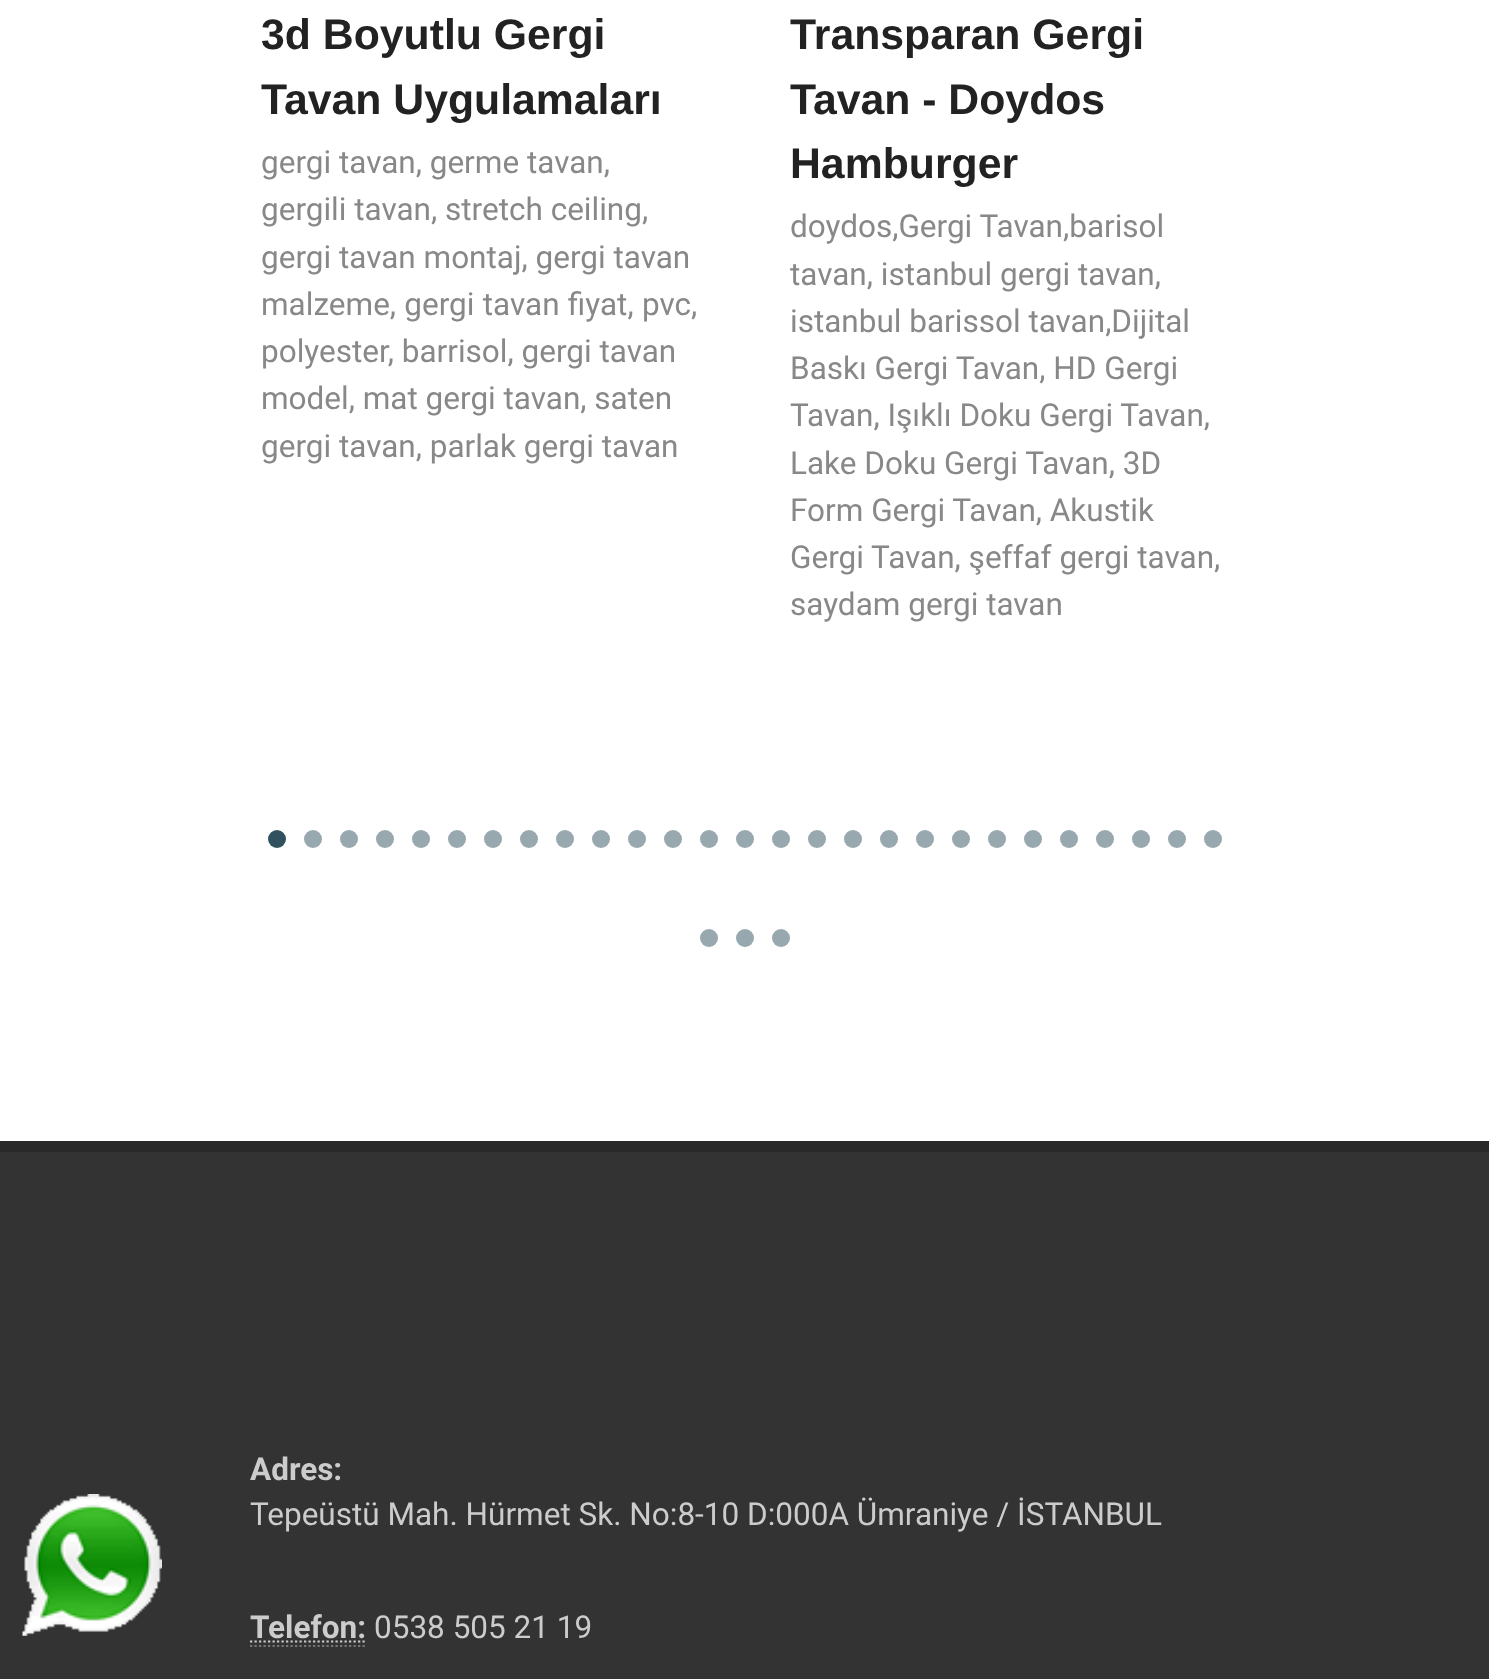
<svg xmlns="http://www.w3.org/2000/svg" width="1489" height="1679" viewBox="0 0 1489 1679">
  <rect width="100%" height="100%" fill="rgb(255,255,255)"/>
  <rect x="0" y="1152" width="1489" height="527" fill="rgb(51,51,51)"/>
  <image x="22" y="1494" width="140" height="142" href="pic1.png"/>
  <g font-family="Liberation Sans" font-size="42.75" font-weight="bold" fill="rgb(34,34,34)">
    <text>
      <tspan x="261" y="49">3d Boyutlu Gergi</tspan>
      <tspan x="261" y="114">Tavan Uygulamaları</tspan>
    </text>
  </g>
  <g font-family="Roboto" font-size="31.5" fill="rgb(136,136,136)">
    <text>
      <tspan x="261" y="173">gergi tavan, germe tavan,</tspan>
      <tspan x="261" y="220">gergili tavan, stretch ceiling,</tspan>
      <tspan x="261" y="268">gergi tavan montaj, gergi tavan</tspan>
      <tspan x="261" y="315" word-spacing="0.5">malzeme, gergi tavan fiyat, pvc,</tspan>
      <tspan x="261" y="362">polyester, barrisol, gergi tavan</tspan>
      <tspan x="261" y="409">model, mat gergi tavan, saten</tspan>
      <tspan x="261" y="457">gergi tavan, parlak gergi tavan</tspan>
    </text>
  </g>
  <g font-family="Liberation Sans" font-size="42.75" font-weight="bold" fill="rgb(34,34,34)">
    <text>
      <tspan x="790" y="49">Transparan Gergi</tspan>
      <tspan x="790" y="114">Tavan - Doydos</tspan>
      <tspan x="790" y="178">Hamburger</tspan>
    </text>
  </g>
  <g font-family="Roboto" font-size="31.5" fill="rgb(136,136,136)">
    <text>
      <tspan x="790" y="237">doydos,Gergi Tavan,barisol</tspan>
      <tspan x="790" y="285">tavan, istanbul gergi tavan,</tspan>
      <tspan x="790" y="332">istanbul barissol tavan,Dijital</tspan>
      <tspan x="790" y="379">Baskı Gergi Tavan, HD Gergi</tspan>
      <tspan x="790" y="426">Tavan, Işıklı Doku Gergi Tavan,</tspan>
      <tspan x="790" y="474">Lake Doku Gergi Tavan, 3D</tspan>
      <tspan x="790" y="521">Form Gergi Tavan, Akustik</tspan>
      <tspan x="790" y="568">Gergi Tavan, şeffaf gergi tavan,</tspan>
      <tspan x="790" y="615">saydam gergi tavan</tspan>
    </text>
  </g>
  <circle cx="277" cy="839" r="9" fill="rgb(49,81,94)"/>
  <circle cx="313" cy="839" r="9" fill="rgb(152,168,175)"/>
  <circle cx="349" cy="839" r="9" fill="rgb(152,168,175)"/>
  <circle cx="385" cy="839" r="9" fill="rgb(152,168,175)"/>
  <circle cx="421" cy="839" r="9" fill="rgb(152,168,175)"/>
  <circle cx="457" cy="839" r="9" fill="rgb(152,168,175)"/>
  <circle cx="493" cy="839" r="9" fill="rgb(152,168,175)"/>
  <circle cx="529" cy="839" r="9" fill="rgb(152,168,175)"/>
  <circle cx="565" cy="839" r="9" fill="rgb(152,168,175)"/>
  <circle cx="601" cy="839" r="9" fill="rgb(152,168,175)"/>
  <circle cx="637" cy="839" r="9" fill="rgb(152,168,175)"/>
  <circle cx="673" cy="839" r="9" fill="rgb(152,168,175)"/>
  <circle cx="709" cy="839" r="9" fill="rgb(152,168,175)"/>
  <circle cx="745" cy="839" r="9" fill="rgb(152,168,175)"/>
  <circle cx="781" cy="839" r="9" fill="rgb(152,168,175)"/>
  <circle cx="817" cy="839" r="9" fill="rgb(152,168,175)"/>
  <circle cx="853" cy="839" r="9" fill="rgb(152,168,175)"/>
  <circle cx="889" cy="839" r="9" fill="rgb(152,168,175)"/>
  <circle cx="925" cy="839" r="9" fill="rgb(152,168,175)"/>
  <circle cx="961" cy="839" r="9" fill="rgb(152,168,175)"/>
  <circle cx="997" cy="839" r="9" fill="rgb(152,168,175)"/>
  <circle cx="1033" cy="839" r="9" fill="rgb(152,168,175)"/>
  <circle cx="1069" cy="839" r="9" fill="rgb(152,168,175)"/>
  <circle cx="1105" cy="839" r="9" fill="rgb(152,168,175)"/>
  <circle cx="1141" cy="839" r="9" fill="rgb(152,168,175)"/>
  <circle cx="1177" cy="839" r="9" fill="rgb(152,168,175)"/>
  <circle cx="1213" cy="839" r="9" fill="rgb(152,168,175)"/>
  <circle cx="709" cy="938" r="9" fill="rgb(152,168,175)"/>
  <circle cx="745" cy="938" r="9" fill="rgb(152,168,175)"/>
  <circle cx="781" cy="938" r="9" fill="rgb(152,168,175)"/>
  <rect x="0" y="1141" width="1489" height="11" fill="rgb(41,41,41)"/>
  <text x="250" y="1480" font-family="Roboto" font-size="31.5" font-weight="bold" fill="rgb(204,204,204)">Adres:</text>
  <text x="250" y="1525" font-family="Roboto" font-size="31.5" fill="rgb(204,204,204)">Tepeüstü Mah. Hürmet Sk. No:8-10 D:000A Ümraniye / İSTANBUL</text>
  <text x="250" y="1638" font-family="Roboto" font-size="31.5" font-weight="bold" fill="rgb(204,204,204)">Telefon:</text>
  <path d="M250 1646H367" fill="none" stroke="rgb(119,119,119)" stroke-width="2.2" stroke-dasharray="2.25 2.25"/>
  <path d="M250 1641.5H366" fill="none" stroke="rgb(204,204,204)" stroke-width="2.2" stroke-dasharray="2.25 2.25"/>
  <text x="374" y="1638" font-family="Roboto" font-size="31.5" fill="rgb(204,204,204)">0538 505 21 19</text>
</svg>
